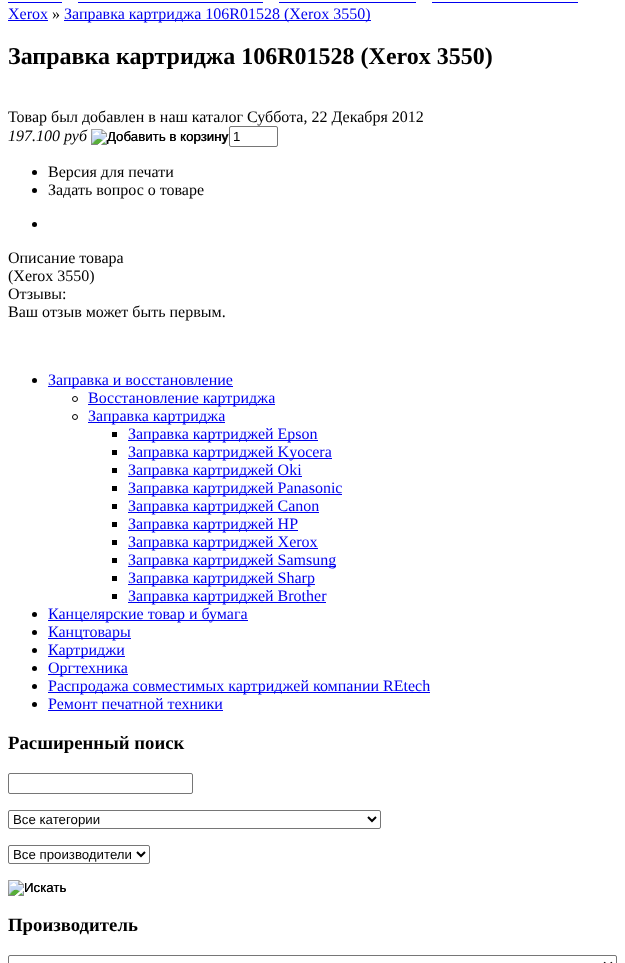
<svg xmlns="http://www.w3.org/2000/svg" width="625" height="963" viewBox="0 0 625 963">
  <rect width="100%" height="100%" fill="rgb(255,255,255)"/>
  <rect x="8" y="2" width="54" height="1" fill="rgb(0,0,238)"/>
  <rect x="78" y="2" width="185" height="1" fill="rgb(0,0,238)"/>
  <rect x="279" y="2" width="137" height="1" fill="rgb(0,0,238)"/>
  <text x="8" y="19" font-family="Liberation Serif" font-size="16" fill="rgb(0,0,238)">Xerox</text>
  <rect x="432" y="2" width="146" height="1" fill="rgb(0,0,238)"/>
  <rect x="8" y="20" width="40" height="1" fill="rgb(0,0,238)"/>
  <text x="52" y="19" font-family="Liberation Serif" font-size="16" fill="rgb(0,0,0)">»</text>
  <rect x="64" y="20" width="307" height="1" fill="rgb(0,0,238)"/>
  <text x="64" y="19" font-family="Liberation Serif" font-size="16" fill="rgb(0,0,238)">Заправка картриджа 106R01528 (Xerox 3550)</text>
  <text x="8" y="64" font-family="Liberation Serif" font-size="24" font-weight="bold" fill="rgb(0,0,0)">Заправка картриджа 106R01528 (Xerox 3550)</text>
  <text x="8" y="122" font-family="Liberation Serif" font-size="16" fill="rgb(0,0,0)">Товар был добавлен в наш каталог Суббота, 22 Декабря 2012</text>
  <text x="8" y="141" font-family="Liberation Serif" font-size="16" font-style="italic" fill="rgb(0,0,0)">197.100 руб</text>
  <image x="91" y="129" width="138" height="16" href="pic1.png"/>
  <text x="107" y="141" font-family="Liberation Sans" font-size="13.25" fill="rgb(0,0,0)">Добавить в корзину</text>
  <rect x="229.5" y="126.5" width="48" height="20" rx="1.5" fill="none" stroke="rgb(118,118,118)"/>
  <text x="233" y="141" font-family="Liberation Sans" font-size="13.25" fill="rgb(0,0,0)">1</text>
  <circle cx="34.5" cy="172.5" r="2.5" fill="rgb(0,0,0)"/>
  <text x="48" y="177" font-family="Liberation Serif" font-size="16" fill="rgb(0,0,0)">Версия для печати</text>
  <circle cx="34.5" cy="190.5" r="2.5" fill="rgb(0,0,0)"/>
  <text x="48" y="195" font-family="Liberation Serif" font-size="16" fill="rgb(0,0,0)">Задать вопрос о товаре</text>
  <circle cx="34.5" cy="224.5" r="2.5" fill="rgb(0,0,0)"/>
  <g font-family="Liberation Serif" font-size="16" fill="rgb(0,0,0)">
    <text>
      <tspan x="8" y="263">Описание товара</tspan>
      <tspan x="8" y="281">(Xerox 3550)</tspan>
      <tspan x="8" y="299">Отзывы:</tspan>
      <tspan x="8" y="317">Ваш отзыв может быть первым.</tspan>
    </text>
  </g>
  <circle cx="34.5" cy="380.5" r="2.5" fill="rgb(0,0,0)"/>
  <rect x="48" y="386" width="185" height="1" fill="rgb(0,0,238)"/>
  <text x="48" y="385" font-family="Liberation Serif" font-size="16" fill="rgb(0,0,238)">Заправка и восстановление</text>
  <circle cx="75" cy="399" r="2.5" fill="none" stroke="rgb(0,0,0)"/>
  <rect x="88" y="404" width="187" height="1" fill="rgb(0,0,238)"/>
  <text x="88" y="403" font-family="Liberation Serif" font-size="16" fill="rgb(0,0,238)">Восстановление картриджа</text>
  <circle cx="75" cy="417" r="2.5" fill="none" stroke="rgb(0,0,0)"/>
  <rect x="88" y="422" width="137" height="1" fill="rgb(0,0,238)"/>
  <text x="88" y="421" font-family="Liberation Serif" font-size="16" fill="rgb(0,0,238)">Заправка картриджа</text>
  <rect x="112" y="432" width="5" height="5" fill="rgb(0,0,0)"/>
  <rect x="128" y="440" width="190" height="1" fill="rgb(0,0,238)"/>
  <text x="128" y="439" font-family="Liberation Serif" font-size="16" fill="rgb(0,0,238)">Заправка картриджей Epson</text>
  <rect x="112" y="450" width="5" height="5" fill="rgb(0,0,0)"/>
  <rect x="128" y="458" width="204" height="1" fill="rgb(0,0,238)"/>
  <text x="128" y="457" font-family="Liberation Serif" font-size="16" fill="rgb(0,0,238)">Заправка картриджей Kyocera</text>
  <rect x="112" y="468" width="5" height="5" fill="rgb(0,0,0)"/>
  <rect x="128" y="476" width="174" height="1" fill="rgb(0,0,238)"/>
  <text x="128" y="475" font-family="Liberation Serif" font-size="16" fill="rgb(0,0,238)">Заправка картриджей Oki</text>
  <rect x="112" y="486" width="5" height="5" fill="rgb(0,0,0)"/>
  <rect x="128" y="494" width="214" height="1" fill="rgb(0,0,238)"/>
  <text x="128" y="493" font-family="Liberation Serif" font-size="16" fill="rgb(0,0,238)">Заправка картриджей Panasonic</text>
  <rect x="112" y="504" width="5" height="5" fill="rgb(0,0,0)"/>
  <rect x="128" y="512" width="191" height="1" fill="rgb(0,0,238)"/>
  <text x="128" y="511" font-family="Liberation Serif" font-size="16" fill="rgb(0,0,238)">Заправка картриджей Canon</text>
  <rect x="112" y="522" width="5" height="5" fill="rgb(0,0,0)"/>
  <rect x="128" y="530" width="170" height="1" fill="rgb(0,0,238)"/>
  <text x="128" y="529" font-family="Liberation Serif" font-size="16" fill="rgb(0,0,238)">Заправка картриджей HP</text>
  <rect x="112" y="540" width="5" height="5" fill="rgb(0,0,0)"/>
  <rect x="128" y="548" width="190" height="1" fill="rgb(0,0,238)"/>
  <text x="128" y="547" font-family="Liberation Serif" font-size="16" fill="rgb(0,0,238)">Заправка картриджей Xerox</text>
  <rect x="112" y="558" width="5" height="5" fill="rgb(0,0,0)"/>
  <rect x="128" y="566" width="208" height="1" fill="rgb(0,0,238)"/>
  <text x="128" y="565" font-family="Liberation Serif" font-size="16" fill="rgb(0,0,238)">Заправка картриджей Samsung</text>
  <rect x="112" y="576" width="5" height="5" fill="rgb(0,0,0)"/>
  <rect x="128" y="584" width="187" height="1" fill="rgb(0,0,238)"/>
  <text x="128" y="583" font-family="Liberation Serif" font-size="16" fill="rgb(0,0,238)">Заправка картриджей Sharp</text>
  <rect x="112" y="594" width="5" height="5" fill="rgb(0,0,0)"/>
  <rect x="128" y="602" width="198" height="1" fill="rgb(0,0,238)"/>
  <text x="128" y="601" font-family="Liberation Serif" font-size="16" fill="rgb(0,0,238)">Заправка картриджей Brother</text>
  <circle cx="34.5" cy="614.5" r="2.5" fill="rgb(0,0,0)"/>
  <rect x="48" y="620" width="200" height="1" fill="rgb(0,0,238)"/>
  <text x="48" y="619" font-family="Liberation Serif" font-size="16" fill="rgb(0,0,238)">Канцелярские товар и бумага</text>
  <circle cx="34.5" cy="632.5" r="2.5" fill="rgb(0,0,0)"/>
  <rect x="48" y="638" width="83" height="1" fill="rgb(0,0,238)"/>
  <text x="48" y="637" font-family="Liberation Serif" font-size="16" fill="rgb(0,0,238)">Канцтовары</text>
  <circle cx="34.5" cy="650.5" r="2.5" fill="rgb(0,0,0)"/>
  <rect x="48" y="656" width="77" height="1" fill="rgb(0,0,238)"/>
  <text x="48" y="655" font-family="Liberation Serif" font-size="16" fill="rgb(0,0,238)">Картриджи</text>
  <circle cx="34.5" cy="668.5" r="2.5" fill="rgb(0,0,0)"/>
  <rect x="48" y="674" width="80" height="1" fill="rgb(0,0,238)"/>
  <text x="48" y="673" font-family="Liberation Serif" font-size="16" fill="rgb(0,0,238)">Оргтехника</text>
  <circle cx="34.5" cy="686.5" r="2.5" fill="rgb(0,0,0)"/>
  <rect x="48" y="692" width="382" height="1" fill="rgb(0,0,238)"/>
  <text x="48" y="691" font-family="Liberation Serif" font-size="16" fill="rgb(0,0,238)">Распродажа совместимых картриджей компании REtech</text>
  <circle cx="34.5" cy="704.5" r="2.5" fill="rgb(0,0,0)"/>
  <text x="48" y="709" font-family="Liberation Serif" font-size="16" fill="rgb(0,0,238)">Ремонт печатной техники</text>
  <rect x="48" y="710" width="175" height="1" fill="rgb(0,0,238)"/>
  <text x="8" y="749" font-family="Liberation Serif" font-size="18.75" font-weight="bold" fill="rgb(0,0,0)">Расширенный поиск</text>
  <rect x="8.5" y="773.5" width="184" height="20" rx="1.5" fill="none" stroke="rgb(118,118,118)"/>
  <rect x="8.5" y="810.5" width="372" height="18" rx="1.5" fill="none" stroke="rgb(118,118,118)"/>
  <path d="M368 817L372 821L376 817" fill="none" stroke="rgb(0,0,0)" stroke-width="2"/>
  <text x="13" y="824" font-family="Liberation Sans" font-size="13.25" fill="rgb(0,0,0)">Все категории</text>
  <rect x="8.5" y="845.5" width="141" height="18" rx="1.5" fill="none" stroke="rgb(118,118,118)"/>
  <path d="M137 852L141 856L145 852" fill="none" stroke="rgb(0,0,0)" stroke-width="2"/>
  <text x="13" y="859" font-family="Liberation Sans" font-size="13.25" fill="rgb(0,0,0)">Все производители</text>
  <image x="8" y="880" width="58" height="16" href="pic2.png"/>
  <text x="24" y="892" font-family="Liberation Sans" font-size="13.25" fill="rgb(0,0,0)">Искать</text>
  <text x="8" y="931" font-family="Liberation Serif" font-size="18.75" font-weight="bold" fill="rgb(0,0,0)">Производитель</text>
  <rect x="8.5" y="955.5" width="608" height="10" rx="1.5" fill="none" stroke="rgb(118,118,118)"/>
  <path d="M604 962.5L608 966.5L612 962.5" fill="none" stroke="rgb(0,0,0)" stroke-width="2"/>
</svg>
